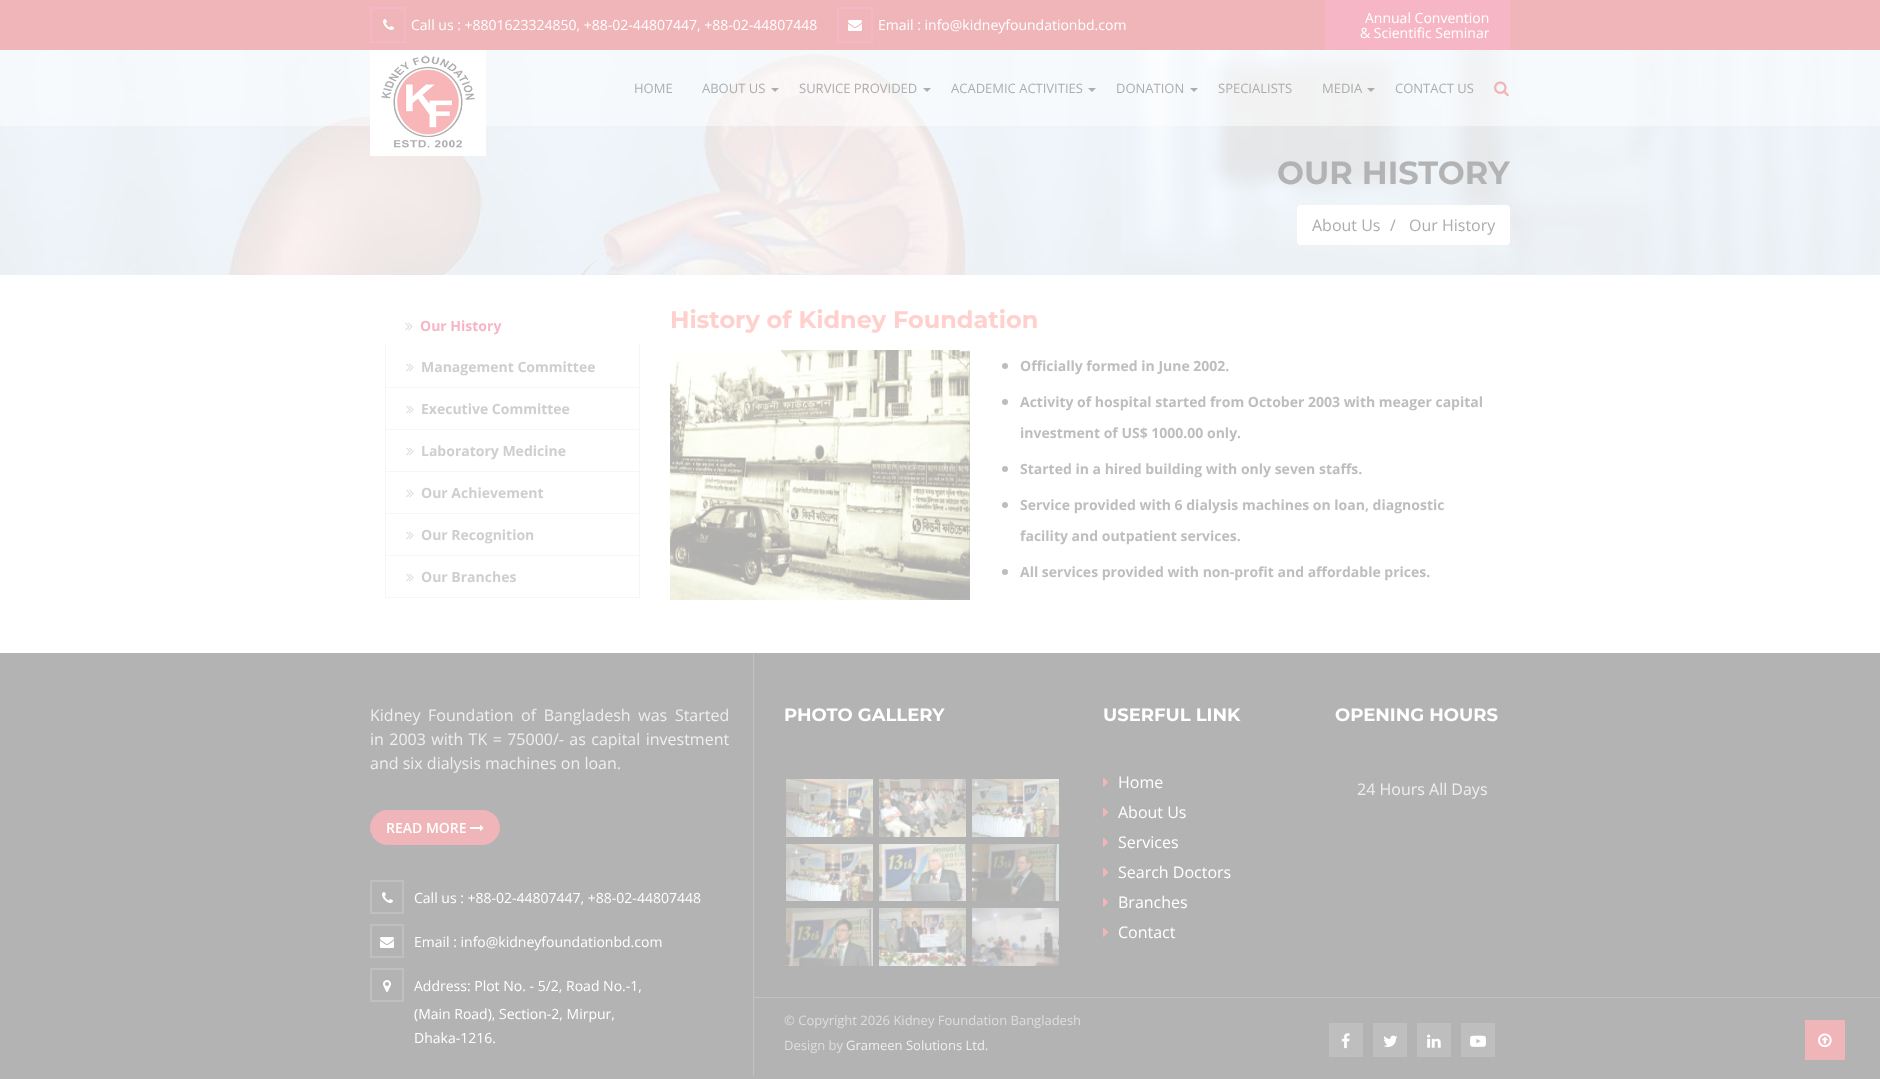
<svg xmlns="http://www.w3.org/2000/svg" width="1880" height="1079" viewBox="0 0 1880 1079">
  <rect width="100%" height="100%" fill="rgb(255,255,255)"/>
  <rect x="0" y="0" width="1880" height="50" fill="rgb(239,181,184)"/>
  <rect x="371" y="8" width="34" height="34" fill="none" stroke="rgb(247,182,198)" stroke-width="2"/>
  <image x="383" y="19" width="11" height="11" href="pic1.png"/>
  <text x="411" y="30" font-family="Open Sans" font-size="14" fill="rgb(255,255,255)">Call us : +8801623324850, +88-02-44807447, +88-02-44807448</text>
  <rect x="838" y="8" width="34" height="34" fill="none" stroke="rgb(247,182,198)" stroke-width="2"/>
  <image x="848" y="20" width="14" height="11" href="pic2.png"/>
  <text x="878" y="30" font-family="Open Sans" font-size="14" fill="rgb(255,255,255)">Email : info@kidneyfoundationbd.com</text>
  <rect x="1325" y="0" width="185" height="50" fill="rgb(247,182,198)"/>
  <g font-family="Open Sans" font-size="14" fill="rgb(255,255,255)">
    <text x="1365" y="23">Annual Convention</text>
    <text x="1360" y="38">&amp; Scientific Seminar</text>
  </g>
  <image x="0" y="50" width="1880" height="225" href="pic5.png"/>
  <rect x="0" y="50" width="1880" height="76" fill="rgba(255,255,255,0.47)"/>
  <rect x="370" y="50" width="116" height="106" fill="rgb(255,255,255)"/>
  <image x="381" y="55" width="94" height="93" href="pic3.png"/>
  <g font-family="Open Sans" font-size="13" fill="rgb(173,173,173)">
    <text x="634" y="93">HOME</text>
    <text x="702" y="93">ABOUT US</text>
  </g>
  <path d="M771 88H779L775 92Z" fill="rgb(173,173,173)"/>
  <text x="799" y="93" font-family="Open Sans" font-size="13" fill="rgb(173,173,173)">SURVICE PROVIDED</text>
  <path d="M923 88H931L927 92Z" fill="rgb(173,173,173)"/>
  <text x="951" y="93" font-family="Open Sans" font-size="13" fill="rgb(173,173,173)">ACADEMIC ACTIVITIES</text>
  <path d="M1088 88H1096L1092 92Z" fill="rgb(173,173,173)"/>
  <text x="1116" y="93" font-family="Open Sans" font-size="13" fill="rgb(173,173,173)">DONATION</text>
  <path d="M1190 88H1198L1194 92Z" fill="rgb(173,173,173)"/>
  <g font-family="Open Sans" font-size="13" fill="rgb(173,173,173)">
    <text x="1218" y="93">SPECIALISTS</text>
    <text x="1322" y="93">MEDIA</text>
  </g>
  <path d="M1367 88H1375L1371 92Z" fill="rgb(173,173,173)"/>
  <text x="1395" y="93" font-family="Open Sans" font-size="13" fill="rgb(173,173,173)">CONTACT US</text>
  <image x="1494" y="81" width="15" height="16" href="pic4.png"/>
  <text x="1277" y="184" font-family="Montserrat" font-size="32" font-weight="bold" fill="rgb(179,179,179)">OUR HISTORY</text>
  <rect x="1297" y="205" width="213" height="40" rx="4" fill="rgb(255,255,255)"/>
  <g font-family="Open Sans" font-size="16" fill="rgb(173,173,173)">
    <text x="1312" y="231">About Us</text>
    <text x="1390" y="231">/</text>
    <text x="1409" y="231">Our History</text>
  </g>
  <image x="405" y="322" width="8" height="9" href="pic6.png"/>
  <text x="420" y="331" font-family="Open Sans" font-size="14" font-weight="bold" fill="rgb(247,182,198)">Our History</text>
  <rect x="639" y="344" width="1" height="254" fill="rgb(246,246,246)"/>
  <rect x="385" y="387" width="255" height="1" fill="rgb(246,246,246)"/>
  <rect x="385" y="344" width="1" height="44" fill="rgb(246,246,246)"/>
  <image x="406" y="363" width="8" height="9" href="pic6.png"/>
  <text x="421" y="372" font-family="Open Sans" font-size="14" font-weight="bold" fill="rgb(206,207,208)">Management Committee</text>
  <rect x="385" y="429" width="255" height="1" fill="rgb(246,246,246)"/>
  <rect x="385" y="388" width="1" height="42" fill="rgb(246,246,246)"/>
  <image x="406" y="405" width="8" height="9" href="pic6.png"/>
  <text x="421" y="414" font-family="Open Sans" font-size="14" font-weight="bold" fill="rgb(206,207,208)">Executive Committee</text>
  <rect x="385" y="471" width="255" height="1" fill="rgb(246,246,246)"/>
  <rect x="385" y="430" width="1" height="42" fill="rgb(246,246,246)"/>
  <image x="406" y="447" width="8" height="9" href="pic6.png"/>
  <text x="421" y="456" font-family="Open Sans" font-size="14" font-weight="bold" fill="rgb(206,207,208)">Laboratory Medicine</text>
  <rect x="385" y="513" width="255" height="1" fill="rgb(246,246,246)"/>
  <rect x="385" y="472" width="1" height="42" fill="rgb(246,246,246)"/>
  <image x="406" y="489" width="8" height="9" href="pic6.png"/>
  <text x="421" y="498" font-family="Open Sans" font-size="14" font-weight="bold" fill="rgb(206,207,208)">Our Achievement</text>
  <rect x="385" y="555" width="255" height="1" fill="rgb(246,246,246)"/>
  <rect x="385" y="514" width="1" height="42" fill="rgb(246,246,246)"/>
  <image x="406" y="531" width="8" height="9" href="pic6.png"/>
  <text x="421" y="540" font-family="Open Sans" font-size="14" font-weight="bold" fill="rgb(206,207,208)">Our Recognition</text>
  <rect x="385" y="597" width="255" height="1" fill="rgb(246,246,246)"/>
  <rect x="385" y="556" width="1" height="42" fill="rgb(246,246,246)"/>
  <image x="406" y="573" width="8" height="9" href="pic6.png"/>
  <text x="421" y="582" font-family="Open Sans" font-size="14" font-weight="bold" fill="rgb(206,207,208)">Our Branches</text>
  <text x="670" y="328" font-family="Montserrat" font-size="24" font-weight="bold" fill="rgb(255,208,204)">History of Kidney Foundation</text>
  <image x="670" y="350" width="300" height="250" href="pic7.png"/>
  <circle cx="1005" cy="366" r="3" fill="rgb(190,190,190)"/>
  <text x="1020" y="371" font-family="Open Sans" font-size="14" font-weight="bold" fill="rgb(190,190,190)">Officially formed in June 2002.</text>
  <circle cx="1005" cy="402" r="3" fill="rgb(190,190,190)"/>
  <g font-family="Open Sans" font-size="14" font-weight="bold" fill="rgb(190,190,190)">
    <text x="1020" y="407">Activity of hospital started from October 2003 with meager capital</text>
    <text x="1020" y="438">investment of US$ 1000.00 only.</text>
  </g>
  <circle cx="1005" cy="469" r="3" fill="rgb(190,190,190)"/>
  <text x="1020" y="474" font-family="Open Sans" font-size="14" font-weight="bold" fill="rgb(190,190,190)">Started in a hired building with only seven staffs.</text>
  <circle cx="1005" cy="505" r="3" fill="rgb(190,190,190)"/>
  <g font-family="Open Sans" font-size="14" font-weight="bold" fill="rgb(190,190,190)">
    <text x="1020" y="510">Service provided with 6 dialysis machines on loan, diagnostic</text>
    <text x="1020" y="541">facility and outpatient services.</text>
  </g>
  <circle cx="1005" cy="572" r="3" fill="rgb(190,190,190)"/>
  <text x="1020" y="577" font-family="Open Sans" font-size="14" font-weight="bold" fill="rgb(190,190,190)">All services provided with non-profit and affordable prices.</text>
  <rect x="0" y="653" width="1880" height="426" fill="rgb(179,179,179)"/>
  <g font-family="Open Sans" font-size="16" fill="rgb(239,239,239)">
    <text>
      <tspan x="370" y="721" word-spacing="3.5">Kidney Foundation of Bangladesh was Started</tspan>
      <tspan x="370" y="745" word-spacing="1.25">in 2003 with TK = 75000/- as capital investment</tspan>
      <tspan x="370" y="769">and six dialysis machines on loan.</tspan>
    </text>
  </g>
  <rect x="370.5" y="810.5" width="129" height="34" rx="17" fill="rgb(239,181,184)" stroke="rgb(239,181,184)"/>
  <text x="386" y="833" font-family="Open Sans" font-size="14" font-weight="600" fill="rgb(255,255,255)">READ MORE</text>
  <image x="470" y="825" width="14" height="6" href="pic8.png"/>
  <rect x="753" y="653" width="1" height="423" fill="rgb(195,194,194)"/>
  <rect x="371" y="881" width="32" height="32" fill="none" stroke="rgb(191,191,191)" stroke-width="2"/>
  <image x="382" y="892" width="11" height="11" href="pic9.png"/>
  <text x="414" y="903" font-family="Open Sans" font-size="14" fill="rgb(255,255,255)">Call us : +88-02-44807447, +88-02-44807448</text>
  <rect x="371" y="925" width="32" height="32" fill="none" stroke="rgb(191,191,191)" stroke-width="2"/>
  <image x="380" y="937" width="14" height="11" href="pic10.png"/>
  <text x="414" y="947" font-family="Open Sans" font-size="14" fill="rgb(255,255,255)">Email : info@kidneyfoundationbd.com</text>
  <rect x="371" y="969" width="32" height="32" fill="none" stroke="rgb(191,191,191)" stroke-width="2"/>
  <image x="383" y="980" width="8" height="12" href="pic11.png"/>
  <g font-family="Open Sans" font-size="14" fill="rgb(255,255,255)">
    <text x="414" y="991">Address: Plot No. - 5/2, Road No.-1,</text>
    <text>
      <tspan x="414" y="1019">(Main Road), Section-2, Mirpur,</tspan>
      <tspan x="414" y="1043">Dhaka-1216.</tspan>
    </text>
  </g>
  <text x="784" y="721" font-family="Montserrat" font-size="18" font-weight="bold" fill="rgb(255,255,255)">PHOTO GALLERY</text>
  <image x="786" y="779" width="87" height="58" href="pic12.png"/>
  <image x="879" y="779" width="87" height="58" href="pic13.png"/>
  <image x="972" y="779" width="87" height="58" href="pic14.png"/>
  <image x="786" y="844" width="87" height="57" href="pic15.png"/>
  <image x="879" y="844" width="87" height="57" href="pic16.png"/>
  <image x="972" y="844" width="87" height="57" href="pic17.png"/>
  <image x="786" y="908" width="87" height="58" href="pic18.png"/>
  <image x="879" y="908" width="87" height="58" href="pic19.png"/>
  <image x="972" y="908" width="87" height="58" href="pic20.png"/>
  <text x="1103" y="721" font-family="Montserrat" font-size="18" font-weight="bold" fill="rgb(255,255,255)">USERFUL LINK</text>
  <image x="1103" y="777" width="6" height="10" href="pic21.png"/>
  <text x="1118" y="788" font-family="Open Sans" font-size="16" fill="rgb(255,255,255)">Home</text>
  <image x="1103" y="807" width="6" height="10" href="pic21.png"/>
  <text x="1118" y="818" font-family="Open Sans" font-size="16" fill="rgb(255,255,255)">About Us</text>
  <image x="1103" y="837" width="6" height="10" href="pic21.png"/>
  <text x="1118" y="848" font-family="Open Sans" font-size="16" fill="rgb(255,255,255)">Services</text>
  <image x="1103" y="867" width="6" height="10" href="pic21.png"/>
  <text x="1118" y="878" font-family="Open Sans" font-size="16" fill="rgb(255,255,255)">Search Doctors</text>
  <image x="1103" y="897" width="6" height="10" href="pic21.png"/>
  <text x="1118" y="908" font-family="Open Sans" font-size="16" fill="rgb(255,255,255)">Branches</text>
  <image x="1103" y="927" width="6" height="10" href="pic21.png"/>
  <text x="1118" y="938" font-family="Open Sans" font-size="16" fill="rgb(255,255,255)">Contact</text>
  <text x="1335" y="721" font-family="Montserrat" font-size="18" font-weight="bold" fill="rgb(255,255,255)">OPENING HOURS</text>
  <text x="1357" y="795" font-family="Open Sans" font-size="16" fill="rgb(239,239,239)">24 Hours All Days</text>
  <rect x="754" y="997" width="1126" height="1" fill="rgb(195,194,194)"/>
  <text x="784" y="1025" font-family="Open Sans" font-size="13" fill="rgb(222,222,222)">© Copyright 2026 Kidney Foundation Bangladesh</text>
  <rect x="1330" y="1024" width="32" height="32" fill="rgb(190,190,190)" stroke="rgb(191,191,191)" stroke-width="2"/>
  <image x="1341" y="1033" width="9" height="16" href="pic22.png"/>
  <rect x="1374" y="1024" width="32" height="32" fill="rgb(190,190,190)" stroke="rgb(191,191,191)" stroke-width="2"/>
  <image x="1383" y="1035" width="15" height="12" href="pic23.png"/>
  <rect x="1418" y="1024" width="32" height="32" fill="rgb(190,190,190)" stroke="rgb(191,191,191)" stroke-width="2"/>
  <image x="1427" y="1034" width="14" height="14" href="pic24.png"/>
  <rect x="1462" y="1024" width="32" height="32" fill="rgb(190,190,190)" stroke="rgb(191,191,191)" stroke-width="2"/>
  <image x="1470" y="1035" width="16" height="12" href="pic25.png"/>
  <text x="784" y="1050" font-family="Open Sans" font-size="13" fill="rgb(222,222,222)">Design by</text>
  <text x="846" y="1050" font-family="Open Sans" font-size="13" fill="rgb(239,239,239)">Grameen Solutions Ltd.</text>
  <rect x="1805" y="1020" width="40" height="40" fill="rgb(239,181,184)"/>
  <image x="1818" y="1033" width="14" height="15" href="pic26.png"/>
</svg>
